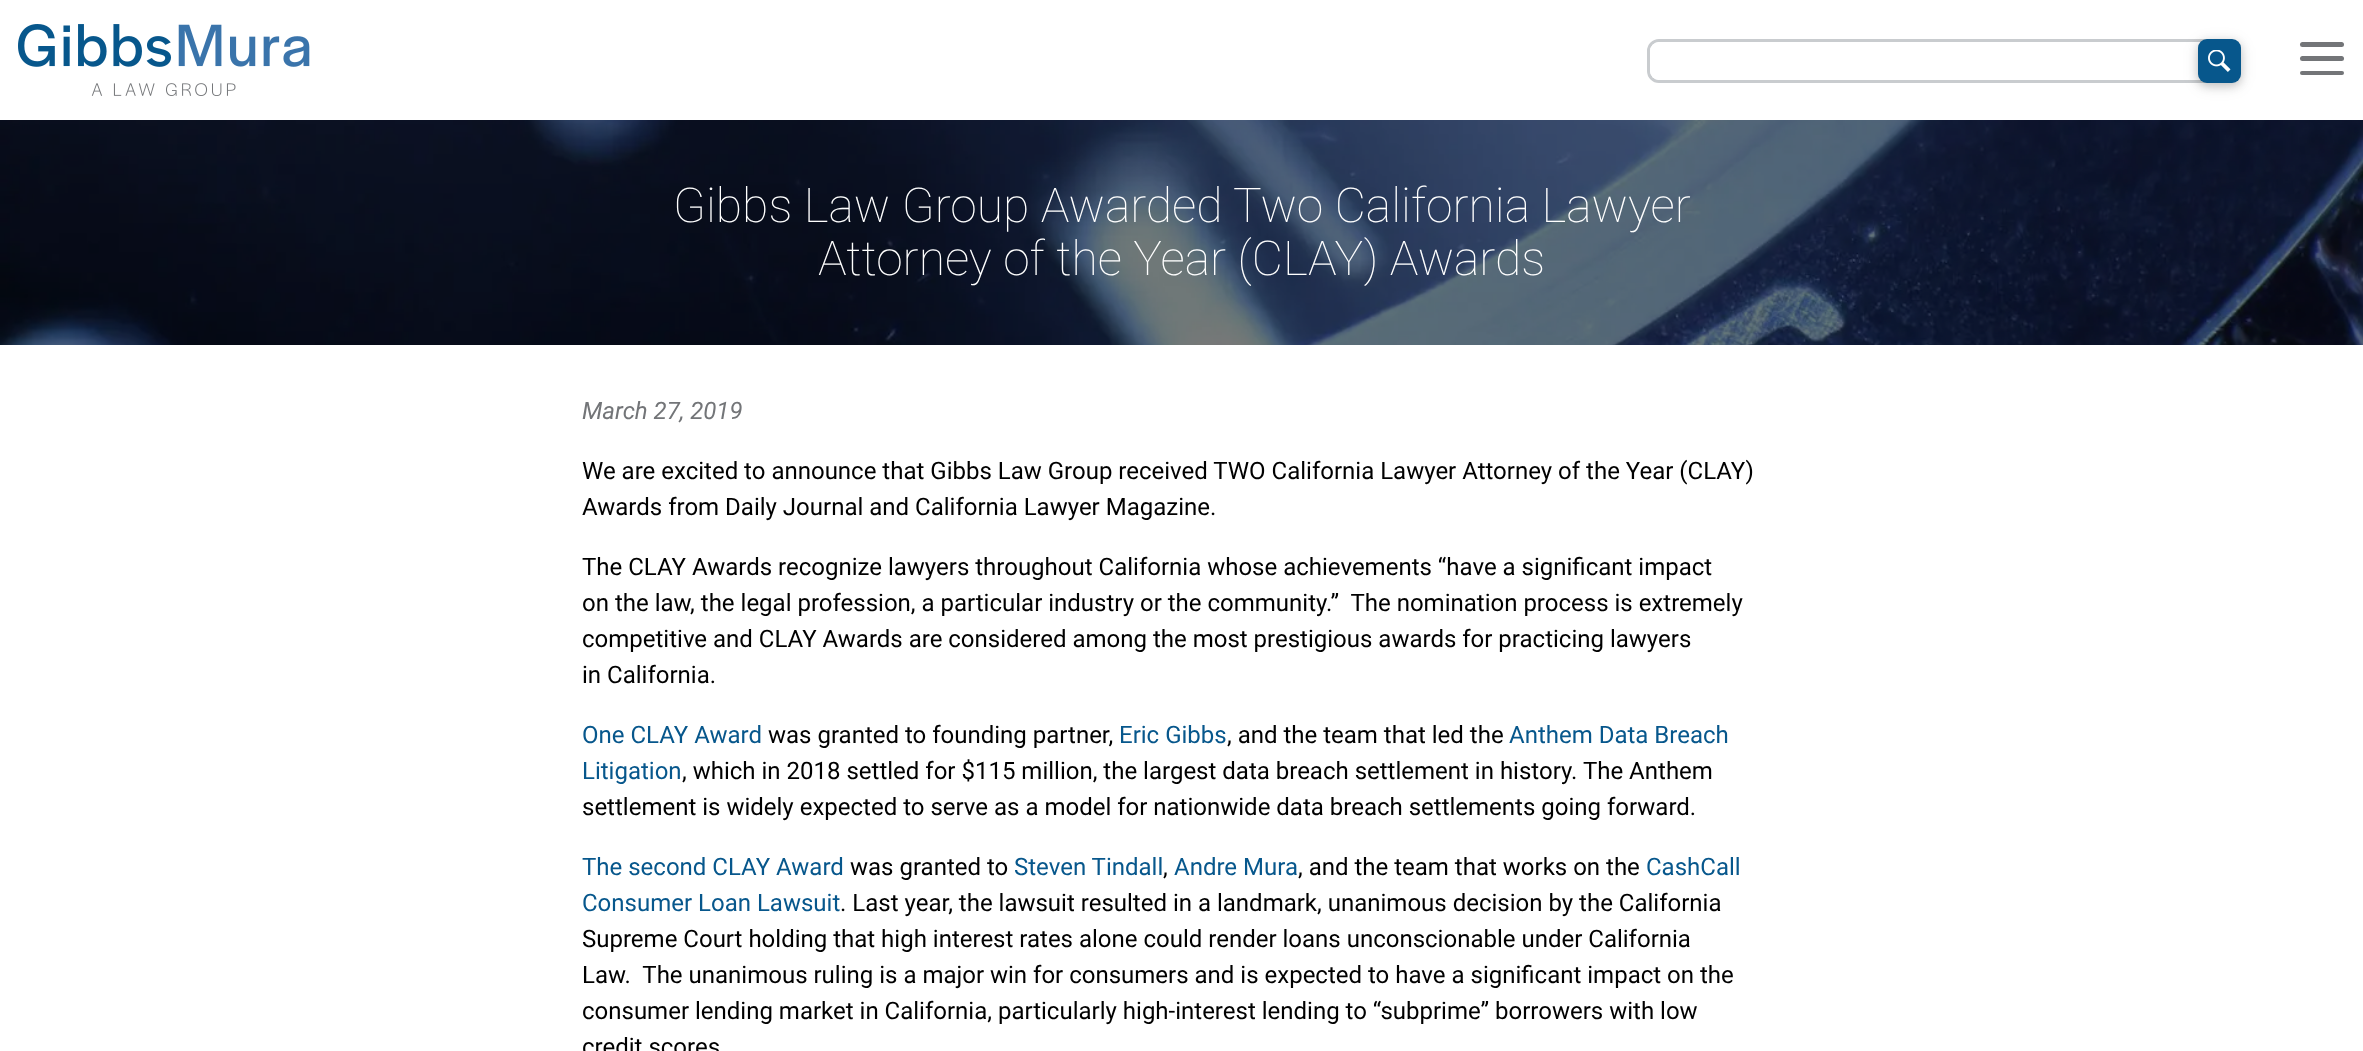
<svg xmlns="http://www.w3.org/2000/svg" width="2363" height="1051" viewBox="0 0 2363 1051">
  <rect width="100%" height="100%" fill="rgb(255,255,255)"/>
  <image x="18" y="24" width="292" height="72" href="pic1.png"/>
  <rect x="1648.5" y="40.5" width="591" height="41" rx="10.5" fill="none" stroke="rgb(201,204,207)" stroke-width="3"/>
  <rect x="1650" y="42" width="588" height="38" rx="9" fill="rgb(255,255,255)"/>
  <rect x="2198" y="42" width="43" height="44" rx="9" fill="rgba(0,0,0,0.12)" filter="blur(7.5px)"/>
  <rect x="2198" y="42" width="43" height="44" rx="9" fill="rgba(0,0,0,0.16)" filter="blur(4px)"/>
  <rect x="2198" y="39" width="43" height="44" rx="9" fill="rgb(7,87,140)"/>
  <image x="2208" y="50" width="23" height="22" href="pic2.png"/>
  <rect x="2300" y="42" width="44" height="5" rx="2.5" fill="rgb(115,117,120)"/>
  <rect x="2300" y="56" width="44" height="5" rx="2.5" fill="rgb(115,117,120)"/>
  <rect x="2300" y="71" width="44" height="4" rx="2" fill="rgb(115,117,120)"/>
  <image x="0" y="120" width="2363" height="225" href="pic3.png"/>
  <g font-family="Roboto" font-size="48" font-weight="100" fill="rgb(255,255,255)">
    <text x="673" y="222">Gibbs Law Group Awarded Two California Lawyer</text>
    <text x="818" y="275">Attorney of the Year (CLAY) Awards</text>
  </g>
  <text x="582" y="419" font-family="Roboto" font-size="24" font-style="italic" fill="rgb(115,117,120)">March 27, 2019</text>
  <g font-family="Roboto" font-size="24" fill="rgb(0,0,0)">
    <text>
      <tspan x="582" y="479">We are excited to announce that Gibbs Law Group received TWO California Lawyer Attorney of the Year (CLAY)</tspan>
      <tspan x="582" y="515">Awards from Daily Journal and California Lawyer Magazine.</tspan>
    </text>
    <text xml:space="preserve"><tspan x="582" y="575">The CLAY Awards recognize lawyers throughout California whose achievements “have a significant impact</tspan><tspan x="582" y="611">on the law, the legal profession, a particular industry or the community.”  The nomination process is extremely</tspan><tspan x="582" y="647">competitive and CLAY Awards are considered among the most prestigious awards for practicing lawyers</tspan><tspan x="582" y="683">in California.</tspan></text>
  </g>
  <text x="582" y="743" font-family="Roboto" font-size="24" fill="rgb(7,87,140)">One CLAY Award</text>
  <text x="768" y="743" font-family="Roboto" font-size="24" fill="rgb(0,0,0)">was granted to founding partner,</text>
  <text x="1119" y="743" font-family="Roboto" font-size="24" fill="rgb(7,87,140)">Eric Gibbs</text>
  <text x="1227" y="743" font-family="Roboto" font-size="24" fill="rgb(0,0,0)">, and the team that led the</text>
  <g font-family="Roboto" font-size="24" fill="rgb(7,87,140)">
    <text x="1509" y="743">Anthem Data Breach</text>
    <text x="582" y="779">Litigation</text>
  </g>
  <g font-family="Roboto" font-size="24" fill="rgb(0,0,0)">
    <text x="682" y="779">, which in 2018 settled for $115 million, the largest data breach settlement in history. The Anthem</text>
    <text x="582" y="815">settlement is widely expected to serve as a model for nationwide data breach settlements going forward.</text>
  </g>
  <text x="582" y="875" font-family="Roboto" font-size="24" fill="rgb(7,87,140)">The second CLAY Award</text>
  <text x="850" y="875" font-family="Roboto" font-size="24" fill="rgb(0,0,0)">was granted to</text>
  <text x="1014" y="875" font-family="Roboto" font-size="24" fill="rgb(7,87,140)">Steven Tindall</text>
  <text x="1163" y="875" font-family="Roboto" font-size="24" fill="rgb(0,0,0)">,</text>
  <text x="1174" y="875" font-family="Roboto" font-size="24" fill="rgb(7,87,140)">Andre Mura</text>
  <text x="1298" y="875" font-family="Roboto" font-size="24" fill="rgb(0,0,0)">, and the team that works on the</text>
  <g font-family="Roboto" font-size="24" fill="rgb(7,87,140)">
    <text x="1646" y="875">CashCall</text>
    <text x="582" y="911">Consumer Loan Lawsuit</text>
  </g>
  <g font-family="Roboto" font-size="24" fill="rgb(0,0,0)">
    <text x="840" y="911">. Last year, the lawsuit resulted in a landmark, unanimous decision by the California</text>
    <text xml:space="preserve"><tspan x="582" y="947">Supreme Court holding that high interest rates alone could render loans unconscionable under California</tspan><tspan x="582" y="983">Law.  The unanimous ruling is a major win for consumers and is expected to have a significant impact on the</tspan><tspan x="582" y="1019">consumer lending market in California, particularly high-interest lending to “subprime” borrowers with low</tspan><tspan x="582" y="1055">credit scores</tspan></text>
  </g>
</svg>
